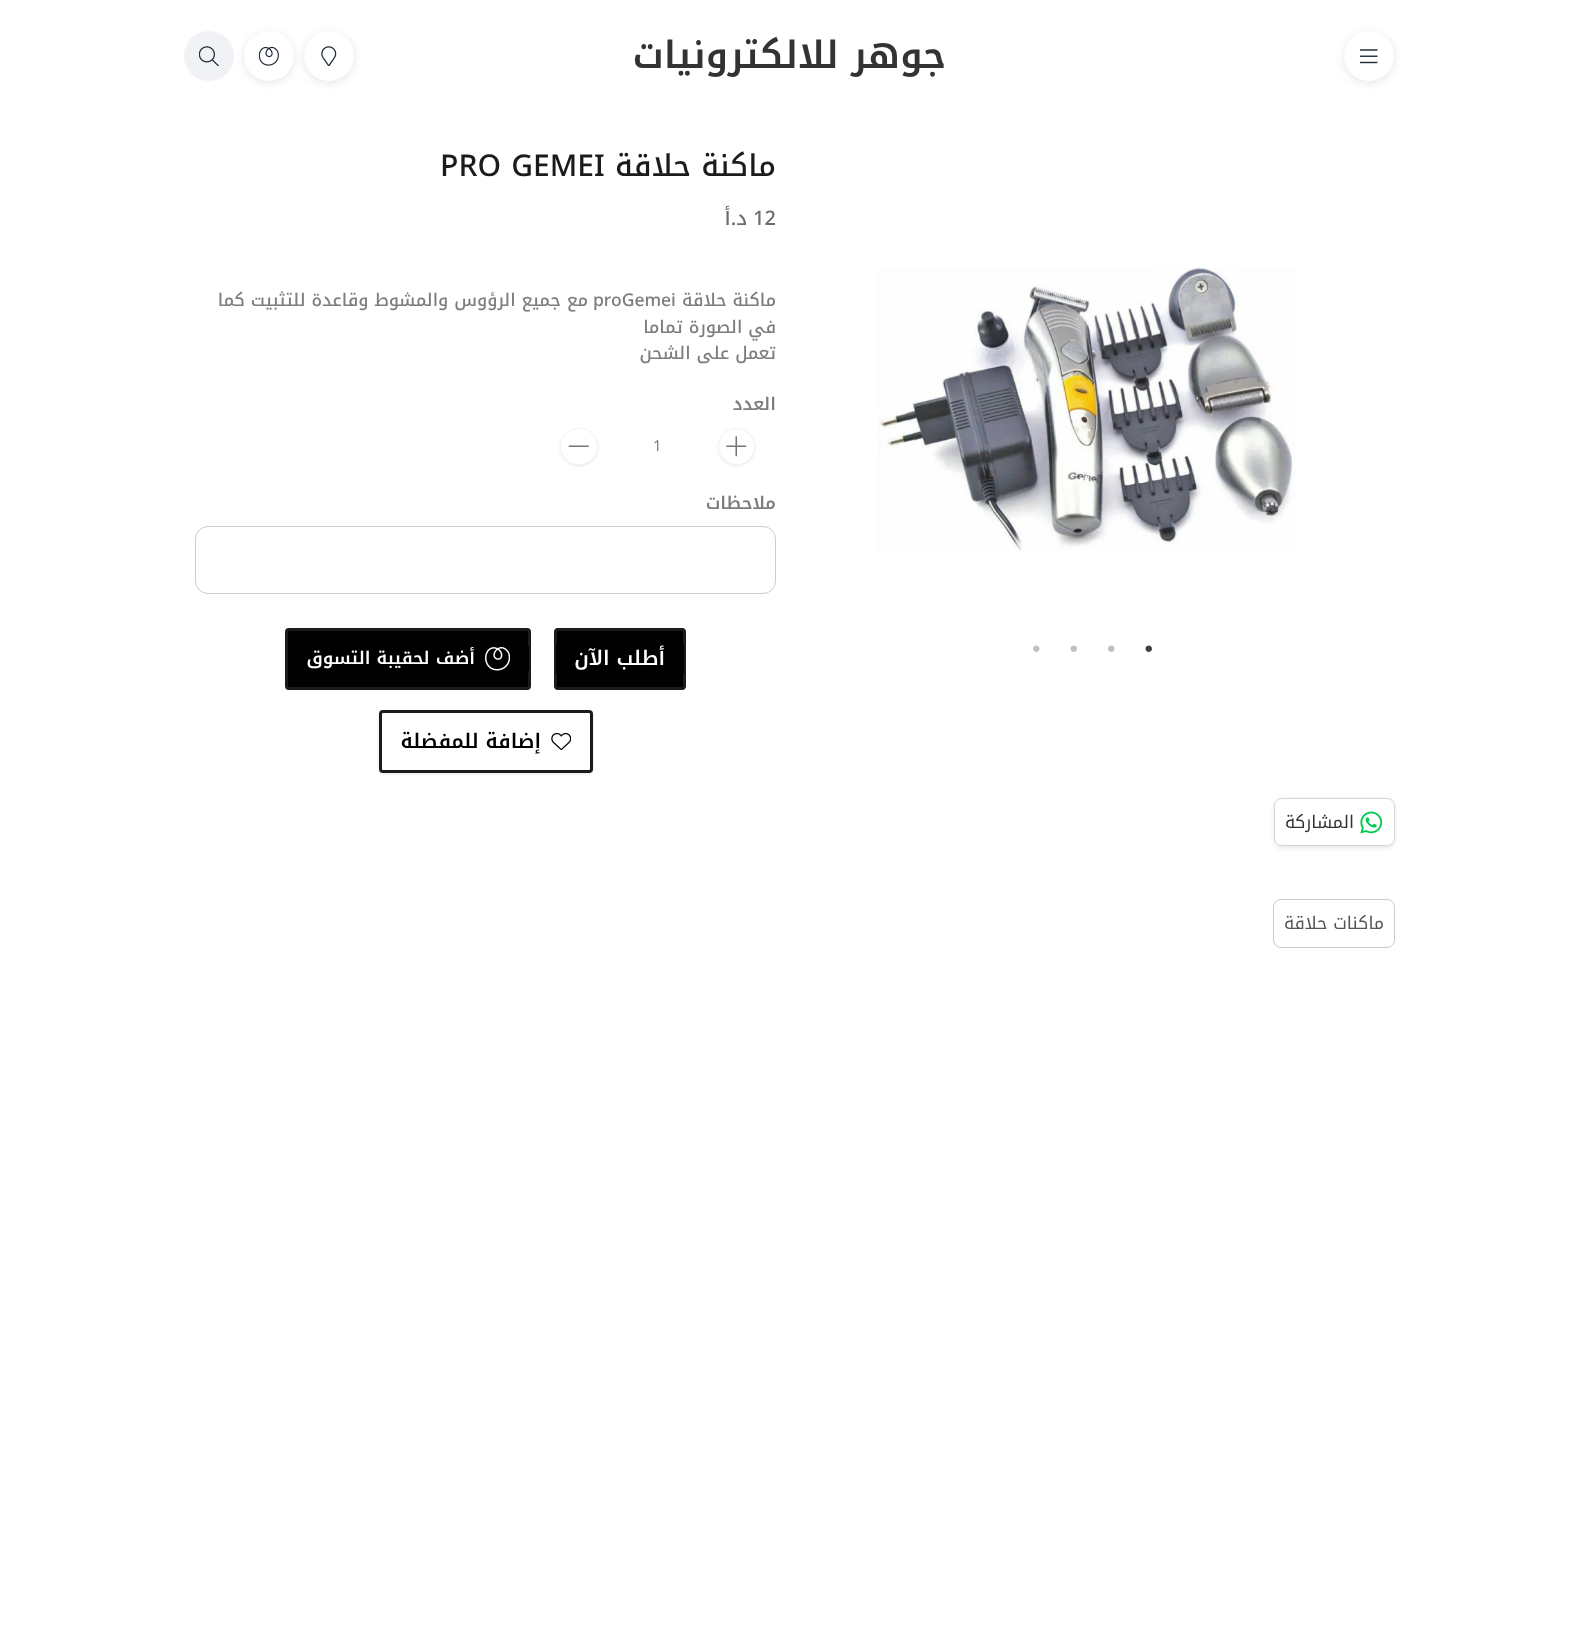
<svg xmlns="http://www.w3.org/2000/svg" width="1577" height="1631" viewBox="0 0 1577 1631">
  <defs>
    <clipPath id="clip1"><path d="M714 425H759V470H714ZM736.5 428C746.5 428 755 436.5 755 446.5C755 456.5 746.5 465 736.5 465C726.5 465 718 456.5 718 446.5C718 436.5 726.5 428 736.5 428Z" clip-rule="evenodd"/></clipPath>
    <clipPath id="clip2"><path d="M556 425H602V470H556ZM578.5 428H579.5C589.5 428 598 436.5 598 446.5C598 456.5 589.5 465 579.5 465H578.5C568.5 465 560 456.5 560 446.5C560 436.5 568.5 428 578.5 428Z" clip-rule="evenodd"/></clipPath>
    <clipPath id="clip3"><path d="M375 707H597V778H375ZM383 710H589C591 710 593 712 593 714V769C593 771 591 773 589 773H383C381 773 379 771 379 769V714C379 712 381 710 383 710Z" clip-rule="evenodd"/></clipPath>
    <clipPath id="clip4"><path d="M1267 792H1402V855H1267ZM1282 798H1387C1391.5 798 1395 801.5 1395 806V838C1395 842.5 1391.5 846 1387 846H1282C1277.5 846 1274 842.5 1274 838V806C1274 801.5 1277.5 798 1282 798Z" clip-rule="evenodd"/></clipPath>
  </defs>
  <rect width="100%" height="100%" fill="rgb(255,255,255)"/>
  <rect x="1344" y="33" width="50" height="50" rx="25" fill="rgba(0,0,0,0.1)" filter="blur(4.5px)"/>
  <circle cx="1369" cy="56" r="25" fill="rgb(255,255,255)"/>
  <image x="1360" y="49" width="18" height="15" href="pic1.png"/>
  <text x="946" y="68" font-family="Noto Kufi Arabic" font-size="37.5" font-weight="600" direction="rtl" fill="rgb(51,51,51)">جوهر للالكترونيات</text>
  <rect x="304" y="33" width="50" height="50" rx="25" fill="rgba(0,0,0,0.1)" filter="blur(4.5px)"/>
  <circle cx="329" cy="56" r="25" fill="rgb(255,255,255)"/>
  <image x="321" y="46" width="16" height="20" href="pic2.png"/>
  <rect x="244" y="33" width="50" height="50" rx="25" fill="rgba(0,0,0,0.1)" filter="blur(4.5px)"/>
  <circle cx="269" cy="56" r="25" fill="rgb(255,255,255)"/>
  <image x="259" y="46" width="20" height="20" href="pic3.png"/>
  <circle cx="209" cy="56" r="25" fill="rgb(240,242,245)"/>
  <image x="199" y="46" width="20" height="20" href="pic4.png"/>
  <image x="878" y="267" width="419" height="285" href="pic5.png"/>
  <image x="1145" y="645" width="7" height="7" href="pic6.png"/>
  <image x="1108" y="645" width="7" height="7" href="pic7.png"/>
  <image x="1070" y="645" width="7" height="7" href="pic8.png"/>
  <image x="1033" y="645" width="7" height="7" href="pic7.png"/>
  <text x="776" y="176" font-family="Noto Kufi Arabic" font-size="30" font-weight="500" direction="rtl" fill="rgb(27,27,27)">ماكنة حلاقة</text>
  <text x="440" y="176" font-family="Noto Kufi Arabic" font-size="30" font-weight="500" fill="rgb(27,27,27)">PRO GEMEI</text>
  <text x="753" y="225" font-family="Noto Kufi Arabic" font-size="20" font-weight="500" fill="rgb(108,106,116)">12</text>
  <text x="747" y="225" font-family="Noto Kufi Arabic" font-size="20" font-weight="500" direction="rtl" fill="rgb(108,106,116)">د.أ</text>
  <text x="776" y="306" font-family="Noto Kufi Arabic" font-size="17.5" font-weight="500" direction="rtl" fill="rgb(125,125,125)">ماكنة حلاقة</text>
  <text x="593" y="306" font-family="Noto Kufi Arabic" font-size="17.5" font-weight="500" fill="rgb(125,125,125)">proGemei</text>
  <g font-family="Noto Kufi Arabic" font-size="17.5" font-weight="500" direction="rtl" fill="rgb(125,125,125)">
    <text x="588" y="306">مع جميع الرؤوس والمشوط وقاعدة للتثبيت كما</text>
    <text>
      <tspan x="776" y="333">في الصورة تماما</tspan>
      <tspan x="776" y="359">تعمل على الشحن</tspan>
    </text>
  </g>
  <text x="776" y="410" font-family="Noto Kufi Arabic" font-size="17.5" font-weight="600" direction="rtl" fill="rgb(125,125,125)">العدد</text>
  <g clip-path="url(#clip1)">
    <rect x="718" y="429" width="37" height="37" rx="18.5" fill="rgba(0,0,0,0.1)" filter="blur(1px)"/>
  </g>
  <circle cx="736.5" cy="446.5" r="18" fill="none" stroke="rgb(243,243,243)"/>
  <image x="726" y="436" width="21" height="21" href="pic9.png"/>
  <text x="653" y="451" font-family="Noto Kufi Arabic" font-size="15" fill="rgb(125,125,125)">1</text>
  <g clip-path="url(#clip2)">
    <rect x="560" y="429" width="38" height="37" rx="18.5" fill="rgba(0,0,0,0.1)" filter="blur(1px)"/>
  </g>
  <rect x="560.5" y="428.5" width="37" height="36" rx="18" fill="none" stroke="rgb(243,243,243)"/>
  <image x="568" y="445" width="21" height="2" href="pic10.png"/>
  <text x="776" y="509" font-family="Noto Kufi Arabic" font-size="17.5" font-weight="600" direction="rtl" fill="rgb(125,125,125)">ملاحظات</text>
  <rect x="195.5" y="526.5" width="580" height="67" rx="12.5" fill="none" stroke="rgb(204,204,204)"/>
  <rect x="555.5" y="629.5" width="129" height="59" rx="2.5" fill="rgb(0,0,0)" stroke="rgb(27,27,27)" stroke-width="3"/>
  <rect x="556" y="644" width="128" height="30" fill="rgb(0,0,0)"/>
  <text x="665" y="665" font-family="Noto Kufi Arabic" font-size="20" font-weight="600" direction="rtl" fill="rgb(255,255,255)">أطلب الآن</text>
  <rect x="286.5" y="629.5" width="243" height="59" rx="2.5" fill="rgb(0,0,0)" stroke="rgb(27,27,27)" stroke-width="3"/>
  <rect x="528" y="646" width="1" height="25" fill="rgb(0,0,0)"/>
  <image x="485" y="647" width="25" height="24" href="pic11.png"/>
  <text x="475" y="664" font-family="Noto Kufi Arabic" font-size="17.5" font-weight="600" direction="rtl" fill="rgb(255,255,255)">أضف لحقيبة التسوق</text>
  <g clip-path="url(#clip3)">
    <rect x="379" y="711" width="214" height="63" rx="4" fill="rgba(0,0,0,0.1)" filter="blur(1px)"/>
  </g>
  <rect x="380.5" y="711.5" width="211" height="60" rx="2.5" fill="none" stroke="rgb(27,27,27)" stroke-width="3"/>
  <image x="551" y="732" width="20" height="18" href="pic12.png"/>
  <text x="541" y="748" font-family="Noto Kufi Arabic" font-size="20" font-weight="600" direction="rtl" fill="rgb(0,0,0)">إضافة للمفضلة</text>
  <g clip-path="url(#clip4)">
    <rect x="1274" y="799" width="121" height="49" rx="8" fill="rgba(0,0,0,0.1)" filter="blur(2px)"/>
  </g>
  <rect x="1274.5" y="798.5" width="120" height="47" rx="7.5" fill="none" stroke="rgb(209,213,220)"/>
  <image x="1360" y="811" width="23" height="23" href="pic13.png"/>
  <text x="1354" y="828" font-family="Noto Kufi Arabic" font-size="17.5" direction="rtl" fill="rgb(51,51,51)">المشاركة</text>
  <rect x="1273.5" y="899.5" width="121" height="48" rx="7.5" fill="none" stroke="rgb(204,204,204)"/>
  <text x="1384" y="929" font-family="Noto Kufi Arabic" font-size="17.5" direction="rtl" fill="rgb(85,85,85)">ماكنات حلاقة</text>
</svg>
